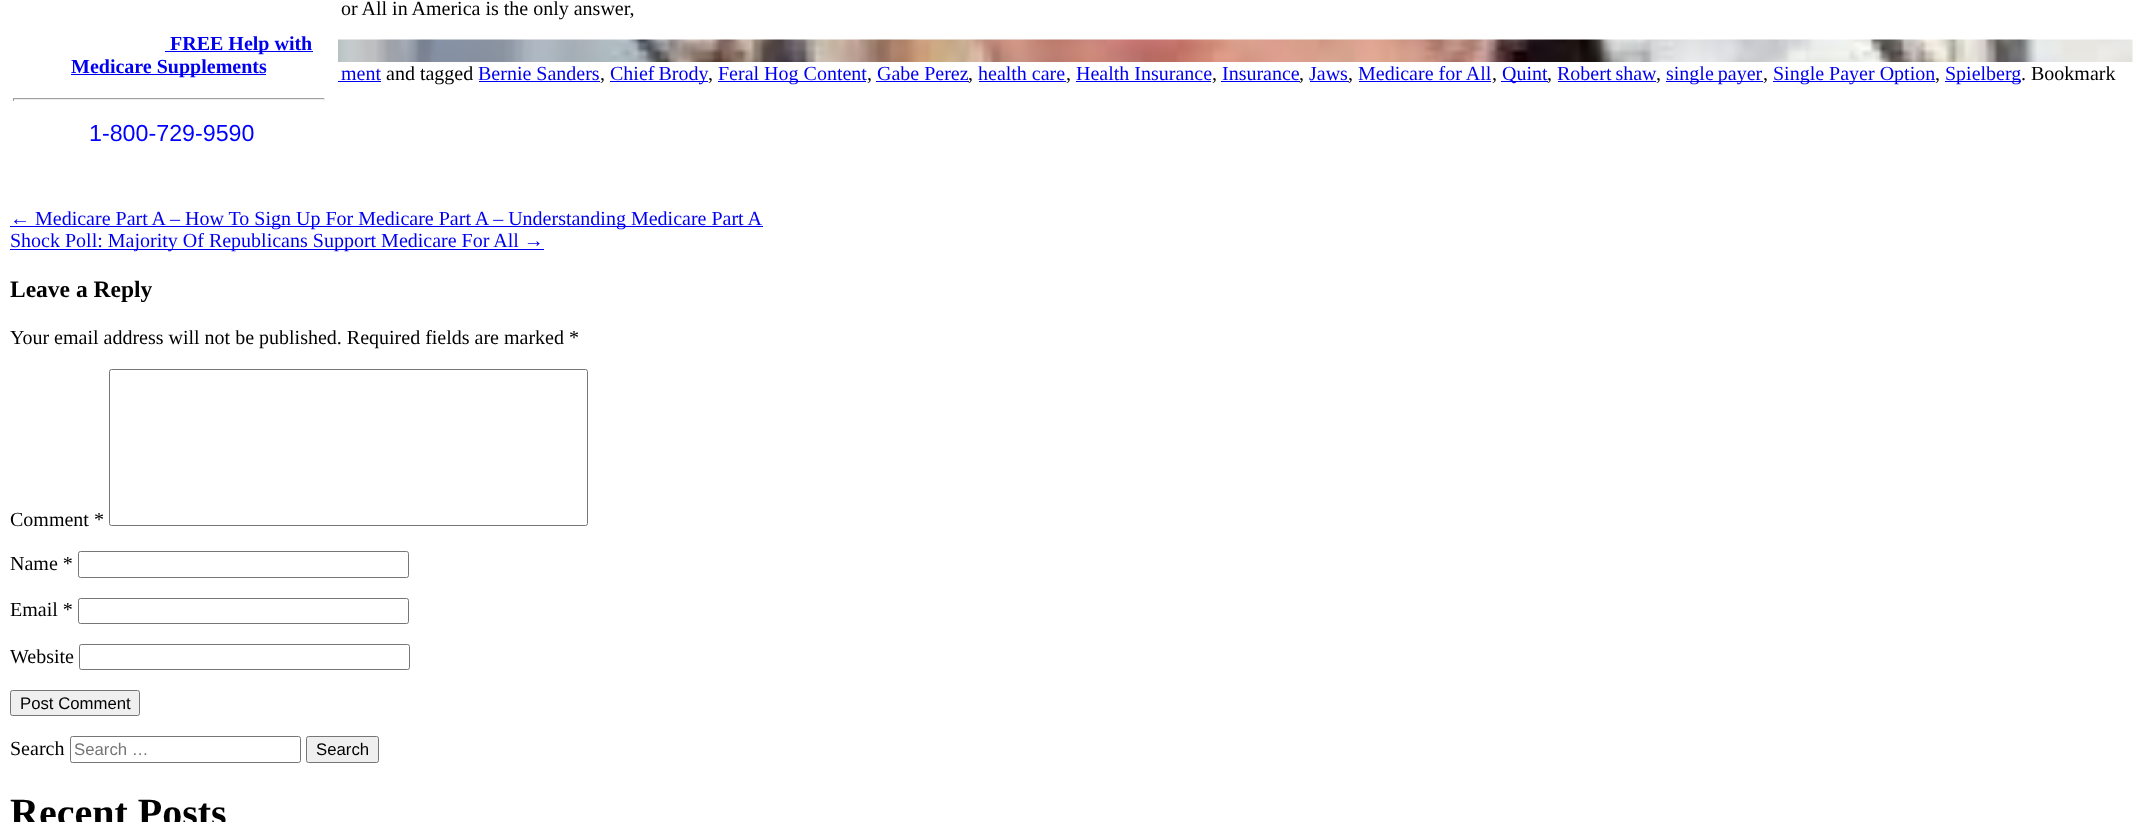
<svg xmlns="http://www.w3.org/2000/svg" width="2142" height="822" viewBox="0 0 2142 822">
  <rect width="100%" height="100%" fill="rgb(255,255,255)"/>
  <text x="341" y="15" font-family="Liberation Serif" font-size="20" fill="rgb(0,0,0)">or All in America is the only answer,</text>
  <image x="338" y="39" width="1795" height="23" href="pic1.png"/>
  <text x="341" y="80" font-family="Liberation Serif" font-size="20" fill="rgb(0,0,238)">ment</text>
  <rect x="338" y="81" width="43" height="1" fill="rgb(0,0,238)"/>
  <text x="386" y="80" font-family="Liberation Serif" font-size="20" fill="rgb(0,0,0)">and tagged</text>
  <text x="478" y="80" font-family="Liberation Serif" font-size="20" fill="rgb(0,0,238)">Bernie Sanders</text>
  <rect x="479" y="81" width="121" height="1" fill="rgb(0,0,238)"/>
  <text x="600" y="80" font-family="Liberation Serif" font-size="20" fill="rgb(0,0,0)">,</text>
  <rect x="610" y="81" width="98" height="1" fill="rgb(0,0,238)"/>
  <text x="610" y="80" word-spacing="-1" font-family="Liberation Serif" font-size="20" fill="rgb(0,0,238)">Chief Brody</text>
  <text x="708" y="80" font-family="Liberation Serif" font-size="20" fill="rgb(0,0,0)">,</text>
  <rect x="718" y="81" width="148" height="1" fill="rgb(0,0,238)"/>
  <text x="718" y="80" font-family="Liberation Serif" font-size="20" fill="rgb(0,0,238)">Feral Hog Content</text>
  <text x="867" y="80" font-family="Liberation Serif" font-size="20" fill="rgb(0,0,0)">,</text>
  <text x="877" y="80" font-family="Liberation Serif" font-size="20" fill="rgb(0,0,238)">Gabe Perez</text>
  <rect x="876" y="81" width="93" height="1" fill="rgb(0,0,238)"/>
  <text x="968" y="80" font-family="Liberation Serif" font-size="20" fill="rgb(0,0,0)">,</text>
  <text x="978" y="80" font-family="Liberation Serif" font-size="20" fill="rgb(0,0,238)">health care</text>
  <rect x="979" y="81" width="87" height="1" fill="rgb(0,0,238)"/>
  <text x="1066" y="80" font-family="Liberation Serif" font-size="20" fill="rgb(0,0,0)">,</text>
  <text x="1076" y="80" font-family="Liberation Serif" font-size="20" fill="rgb(0,0,238)">Health Insurance</text>
  <rect x="1076" y="81" width="135" height="1" fill="rgb(0,0,238)"/>
  <text x="1212" y="80" font-family="Liberation Serif" font-size="20" fill="rgb(0,0,0)">,</text>
  <text x="1222" y="80" font-family="Liberation Serif" font-size="20" fill="rgb(0,0,238)">Insurance</text>
  <rect x="1221" y="81" width="79" height="1" fill="rgb(0,0,238)"/>
  <text x="1299" y="80" font-family="Liberation Serif" font-size="20" fill="rgb(0,0,0)">,</text>
  <text x="1309" y="80" font-family="Liberation Serif" font-size="20" fill="rgb(0,0,238)">Jaws</text>
  <rect x="1310" y="81" width="39" height="1" fill="rgb(0,0,238)"/>
  <text x="1348" y="80" font-family="Liberation Serif" font-size="20" fill="rgb(0,0,0)">,</text>
  <text x="1358" y="80" font-family="Liberation Serif" font-size="20" fill="rgb(0,0,238)">Medicare for All</text>
  <rect x="1359" y="81" width="132" height="1" fill="rgb(0,0,238)"/>
  <text x="1492" y="80" font-family="Liberation Serif" font-size="20" fill="rgb(0,0,0)">,</text>
  <rect x="1501" y="81" width="47" height="1" fill="rgb(0,0,238)"/>
  <text x="1502" y="80" font-family="Liberation Serif" font-size="20" fill="rgb(0,0,238)">Quint</text>
  <text x="1547" y="80" font-family="Liberation Serif" font-size="20" fill="rgb(0,0,0)">,</text>
  <text x="1557" y="80" word-spacing="-1" font-family="Liberation Serif" font-size="20" fill="rgb(0,0,238)">Robert shaw</text>
  <rect x="1558" y="81" width="98" height="1" fill="rgb(0,0,238)"/>
  <text x="1656" y="80" font-family="Liberation Serif" font-size="20" fill="rgb(0,0,0)">,</text>
  <rect x="1666" y="81" width="97" height="1" fill="rgb(0,0,238)"/>
  <text x="1666" y="80" word-spacing="-1" font-family="Liberation Serif" font-size="20" fill="rgb(0,0,238)">single payer</text>
  <text x="1763" y="80" font-family="Liberation Serif" font-size="20" fill="rgb(0,0,0)">,</text>
  <rect x="1773" y="81" width="162" height="1" fill="rgb(0,0,238)"/>
  <text x="1773" y="80" font-family="Liberation Serif" font-size="20" fill="rgb(0,0,238)">Single Payer Option</text>
  <text x="1935" y="80" font-family="Liberation Serif" font-size="20" fill="rgb(0,0,0)">,</text>
  <rect x="1945" y="81" width="76" height="1" fill="rgb(0,0,238)"/>
  <text x="1945" y="80" font-family="Liberation Serif" font-size="20" fill="rgb(0,0,238)">Spielberg</text>
  <text x="2021" y="80" font-family="Liberation Serif" font-size="20" fill="rgb(0,0,0)">. Bookmark</text>
  <rect x="10" y="226" width="753" height="1" fill="rgb(0,0,238)"/>
  <text x="10" y="225" font-family="Liberation Serif" font-size="20" fill="rgb(0,0,238)">← Medicare Part A – How To Sign Up For Medicare Part A – Understanding Medicare Part A</text>
  <rect x="10" y="249" width="534" height="1" fill="rgb(0,0,238)"/>
  <text x="10" y="247" font-family="Liberation Serif" font-size="20" fill="rgb(0,0,238)">Shock Poll: Majority Of Republicans Support Medicare For All →</text>
  <text x="10" y="297" font-family="Liberation Serif" font-size="23.5" font-weight="bold" fill="rgb(0,0,0)">Leave a Reply</text>
  <g font-family="Liberation Serif" font-size="20" fill="rgb(0,0,0)">
    <text x="10" y="344">Your email address will not be published. Required fields are marked *</text>
    <text x="10" y="526">Comment *</text>
  </g>
  <rect x="109.5" y="369.5" width="478" height="156" rx="2" fill="none" stroke="rgb(118,118,118)"/>
  <text x="10" y="570" font-family="Liberation Serif" font-size="20" fill="rgb(0,0,0)">Name *</text>
  <rect x="78.5" y="551.5" width="330" height="26" rx="2" fill="none" stroke="rgb(118,118,118)"/>
  <text x="10" y="616" font-family="Liberation Serif" font-size="20" fill="rgb(0,0,0)">Email *</text>
  <rect x="78.5" y="598.5" width="330" height="25" rx="2" fill="none" stroke="rgb(118,118,118)"/>
  <text x="10" y="663" font-family="Liberation Serif" font-size="20" fill="rgb(0,0,0)">Website</text>
  <rect x="79.5" y="644.5" width="330" height="25" rx="2" fill="none" stroke="rgb(118,118,118)"/>
  <rect x="10.5" y="690.5" width="129" height="25" rx="2" fill="rgb(239,239,239)" stroke="rgb(118,118,118)"/>
  <text x="20" y="709" font-family="Liberation Sans" font-size="16.75" fill="rgb(0,0,0)">Post Comment</text>
  <text x="10" y="755" font-family="Liberation Serif" font-size="20" fill="rgb(0,0,0)">Search</text>
  <rect x="70.5" y="736.5" width="230" height="26" rx="2" fill="none" stroke="rgb(118,118,118)"/>
  <text x="74" y="755" font-family="Liberation Sans" font-size="16.75" fill="rgb(117,117,117)">Search …</text>
  <rect x="306.5" y="736.5" width="72" height="26" rx="2" fill="rgb(239,239,239)" stroke="rgb(118,118,118)"/>
  <text x="316" y="755" font-family="Liberation Sans" font-size="16.75" fill="rgb(0,0,0)">Search</text>
  <text x="10" y="826" font-family="Liberation Serif" font-size="40" font-weight="bold" fill="rgb(0,0,0)">Recent Posts</text>
  <rect x="165" y="51" width="148" height="1" fill="rgb(0,0,238)"/>
  <text x="170" y="50" font-family="Liberation Serif" font-size="20" font-weight="bold" fill="rgb(0,0,238)">FREE Help with</text>
  <rect x="71" y="74" width="195" height="1" fill="rgb(0,0,238)"/>
  <text x="71" y="73" font-family="Liberation Serif" font-size="20" font-weight="bold" fill="rgb(0,0,238)">Medicare Supplements</text>
  <rect x="13" y="98" width="312" height="1" fill="rgb(159,159,159)"/>
  <rect x="324" y="98" width="1" height="3" fill="rgb(238,238,238)"/>
  <rect x="13" y="99" width="312" height="1" fill="rgb(238,238,238)"/>
  <rect x="13" y="98" width="1" height="3" fill="rgb(159,159,159)"/>
  <text x="89" y="141" font-family="Liberation Sans" font-size="23.25" fill="rgb(0,0,255)">1-800-729-9590</text>
</svg>
